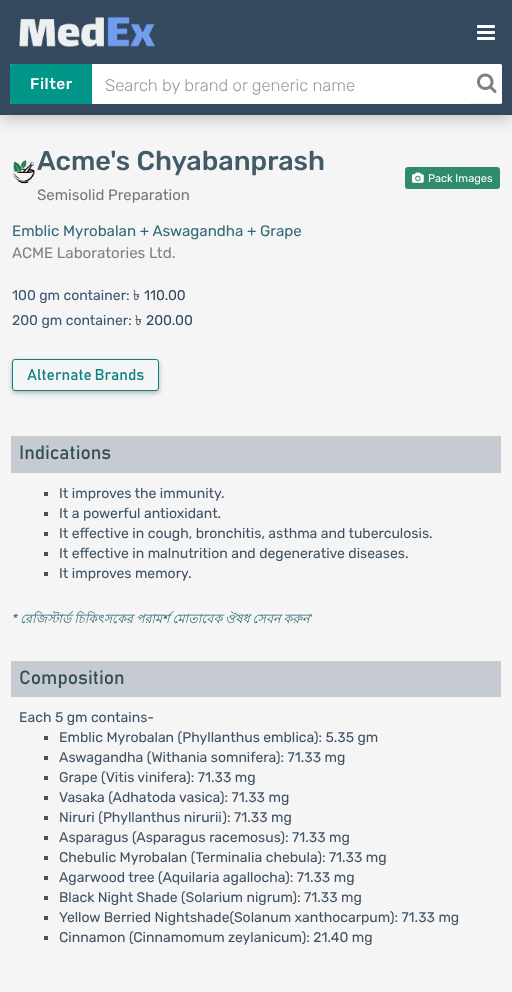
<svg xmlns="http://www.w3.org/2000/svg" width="512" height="992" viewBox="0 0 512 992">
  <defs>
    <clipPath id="clip1"><path d="M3 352H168V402H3ZM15 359H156C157.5 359 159 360.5 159 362V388C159 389.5 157.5 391 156 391H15C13.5 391 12 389.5 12 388V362C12 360.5 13.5 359 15 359Z" clip-rule="evenodd"/></clipPath>
  </defs>
  <rect width="100%" height="100%" fill="rgb(245,245,245)"/>
  <rect x="0" y="0" width="512" height="115" fill="rgba(0,0,0,0.3)" filter="blur(10px)"/>
  <rect x="0" y="0" width="512" height="115" fill="rgb(52,73,94)"/>
  <image x="19" y="16" width="136" height="31" href="pic1.png"/>
  <image x="477" y="25" width="18" height="15" href="pic2.png"/>
  <rect x="10" y="64" width="492" height="40" rx="2" fill="rgb(255,255,255)"/>
  <path d="M12 64H92V104H12C11 104 10 103 10 102V66C10 65 11 64 12 64Z" fill="rgb(0,150,136)"/>
  <text x="30" y="89" font-family="Rubik" font-size="15.5" font-weight="300" letter-spacing="0.5" fill="rgb(255,255,255)">Filter</text>
  <text x="105" y="91" font-family="'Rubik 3'" font-size="16.75" font-weight="300" fill="rgb(153,153,153)">Search by brand or generic name</text>
  <path d="M470 64H500C501 64 502 65 502 66V102C502 103 501 104 500 104H470Z" fill="rgb(255,255,255)"/>
  <rect x="470" y="103" width="31" height="1" fill="rgb(238,238,238)"/>
  <image x="477" y="73" width="20" height="20" href="pic3.png"/>
  <image x="12" y="160" width="23" height="24" href="pic4.png"/>
  <text x="37" y="170" font-family="Rubik" font-size="27" font-weight="300" fill="rgb(67,91,102)">Acme's Chyabanprash</text>
  <text x="37" y="200" font-family="'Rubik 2'" font-size="15" font-weight="300" fill="rgb(119,119,119)">Semisolid Preparation</text>
  <rect x="405" y="167" width="95" height="22" rx="3" fill="rgb(46,140,109)"/>
  <image x="412" y="172" width="12" height="11" href="pic5.png"/>
  <text x="428" y="182" font-family="'Rubik 2'" font-size="11" font-weight="300" fill="rgb(255,255,255)">Pack Images</text>
  <text x="12" y="236" font-family="'Rubik 2'" font-size="15.1" font-weight="300" fill="rgb(48,105,118)">Emblic Myrobalan + Aswagandha + Grape</text>
  <text x="12" y="258" font-family="'Rubik 2'" font-size="15.1" font-weight="300" fill="rgb(130,130,130)">ACME Laboratories Ltd.</text>
  <text x="12" y="300" font-family="'Rubik 2'" font-size="14" font-weight="300" fill="rgb(58,85,113)">100 gm container:</text>
  <text x="133" y="300" font-family="Lohit Bengali" font-size="14" fill="rgb(52,73,94)">৳</text>
  <text x="144" y="300" font-family="'Rubik 2'" font-size="14" font-weight="300" fill="rgb(52,73,94)">110.00</text>
  <text x="12" y="325" font-family="'Rubik 2'" font-size="14" font-weight="300" fill="rgb(58,85,113)">200 gm container:</text>
  <text x="135" y="325" font-family="Lohit Bengali" font-size="14" fill="rgb(52,73,94)">৳</text>
  <text x="146" y="325" font-family="'Rubik 2'" font-size="14" font-weight="300" fill="rgb(52,73,94)">200.00</text>
  <g clip-path="url(#clip1)">
    <rect x="12" y="361" width="147" height="32" rx="3" fill="rgba(0,0,0,0.26)" filter="blur(2.5px)"/>
  </g>
  <rect x="12.5" y="359.5" width="146" height="31" rx="2.5" fill="none" stroke="rgb(10,129,129)"/>
  <text x="27" y="380" font-family="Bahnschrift" font-size="15.5" fill="rgb(10,129,129)">Alternate Brands</text>
  <rect x="11" y="436" width="490" height="37" fill="rgb(197,203,209)"/>
  <text x="19" y="459" font-family="Bahnschrift" font-size="19" fill="rgb(51,78,82)">Indications</text>
  <rect x="44" y="492" width="4" height="4" fill="rgb(63,82,100)"/>
  <text x="59" y="498" font-family="'Rubik 2'" font-size="14" font-weight="300" fill="rgb(63,82,100)">It improves the immunity.</text>
  <rect x="44" y="512" width="4" height="4" fill="rgb(63,82,100)"/>
  <text x="59" y="518" font-family="'Rubik 2'" font-size="14" font-weight="300" fill="rgb(63,82,100)">It a powerful antioxidant.</text>
  <rect x="44" y="532" width="4" height="4" fill="rgb(63,82,100)"/>
  <text x="59" y="538" font-family="'Rubik 2'" font-size="14" font-weight="300" fill="rgb(63,82,100)">It effective in cough, bronchitis, asthma and tuberculosis.</text>
  <rect x="44" y="552" width="4" height="4" fill="rgb(63,82,100)"/>
  <text x="59" y="558" font-family="'Rubik 2'" font-size="14" font-weight="300" fill="rgb(63,82,100)">It effective in malnutrition and degenerative diseases.</text>
  <rect x="44" y="572" width="4" height="4" fill="rgb(63,82,100)"/>
  <text x="59" y="578" font-family="'Rubik 2'" font-size="14" font-weight="300" fill="rgb(63,82,100)">It improves memory.</text>
  <text x="11" y="623" font-family="Rubik" font-size="12.6" font-weight="300" font-style="italic" fill="rgb(48,105,118)">*</text>
  <text x="20" y="623" word-spacing="-0.5" font-family="Lohit Bengali" font-size="12.6" font-style="italic" fill="rgb(48,105,118)">রেজিস্টার্ড চিকিৎসকের পরামর্শ মোতাবেক ঔষধ সেবন করুন</text>
  <text x="310" y="623" font-family="'Rubik 2'" font-size="12.6" font-weight="300" fill="rgb(130,130,130)">'</text>
  <rect x="11" y="661" width="490" height="36" fill="rgb(197,203,209)"/>
  <text x="19" y="684" font-family="Bahnschrift" font-size="19" fill="rgb(51,78,82)">Composition</text>
  <text x="19" y="722" font-family="'Rubik 2'" font-size="14" font-weight="300" fill="rgb(63,82,100)">Each 5 gm contains-</text>
  <rect x="44" y="736" width="4" height="4" fill="rgb(63,82,100)"/>
  <text x="59" y="742" font-family="'Rubik 2'" font-size="14" font-weight="300" fill="rgb(63,82,100)">Emblic Myrobalan (Phyllanthus emblica): 5.35 gm</text>
  <rect x="44" y="756" width="4" height="4" fill="rgb(63,82,100)"/>
  <text x="59" y="762" font-family="'Rubik 2'" font-size="14" font-weight="300" fill="rgb(63,82,100)">Aswagandha (Withania somnifera): 71.33 mg</text>
  <rect x="44" y="776" width="4" height="4" fill="rgb(63,82,100)"/>
  <text x="59" y="782" font-family="'Rubik 2'" font-size="14" font-weight="300" fill="rgb(63,82,100)">Grape (Vitis vinifera): 71.33 mg</text>
  <rect x="44" y="796" width="4" height="4" fill="rgb(63,82,100)"/>
  <text x="59" y="802" font-family="'Rubik 2'" font-size="14" font-weight="300" fill="rgb(63,82,100)">Vasaka (Adhatoda vasica): 71.33 mg</text>
  <rect x="44" y="816" width="4" height="4" fill="rgb(63,82,100)"/>
  <text x="59" y="822" font-family="'Rubik 2'" font-size="14" font-weight="300" fill="rgb(63,82,100)">Niruri (Phyllanthus nirurii): 71.33 mg</text>
  <rect x="44" y="836" width="4" height="4" fill="rgb(63,82,100)"/>
  <text x="59" y="842" font-family="'Rubik 2'" font-size="14" font-weight="300" fill="rgb(63,82,100)">Asparagus (Asparagus racemosus): 71.33 mg</text>
  <rect x="44" y="856" width="4" height="4" fill="rgb(63,82,100)"/>
  <text x="59" y="862" font-family="'Rubik 2'" font-size="14" font-weight="300" fill="rgb(63,82,100)">Chebulic Myrobalan (Terminalia chebula): 71.33 mg</text>
  <rect x="44" y="876" width="4" height="4" fill="rgb(63,82,100)"/>
  <text x="59" y="882" font-family="'Rubik 2'" font-size="14" font-weight="300" fill="rgb(63,82,100)">Agarwood tree (Aquilaria agallocha): 71.33 mg</text>
  <rect x="44" y="896" width="4" height="4" fill="rgb(63,82,100)"/>
  <text x="59" y="902" font-family="'Rubik 2'" font-size="14" font-weight="300" fill="rgb(63,82,100)">Black Night Shade (Solarium nigrum): 71.33 mg</text>
  <rect x="44" y="916" width="4" height="4" fill="rgb(63,82,100)"/>
  <text x="59" y="922" font-family="'Rubik 2'" font-size="14" font-weight="300" fill="rgb(63,82,100)">Yellow Berried Nightshade(Solanum xanthocarpum): 71.33 mg</text>
  <rect x="44" y="936" width="4" height="4" fill="rgb(63,82,100)"/>
  <text x="59" y="942" font-family="'Rubik 2'" font-size="14" font-weight="300" fill="rgb(63,82,100)">Cinnamon (Cinnamomum zeylanicum): 21.40 mg</text>
</svg>
